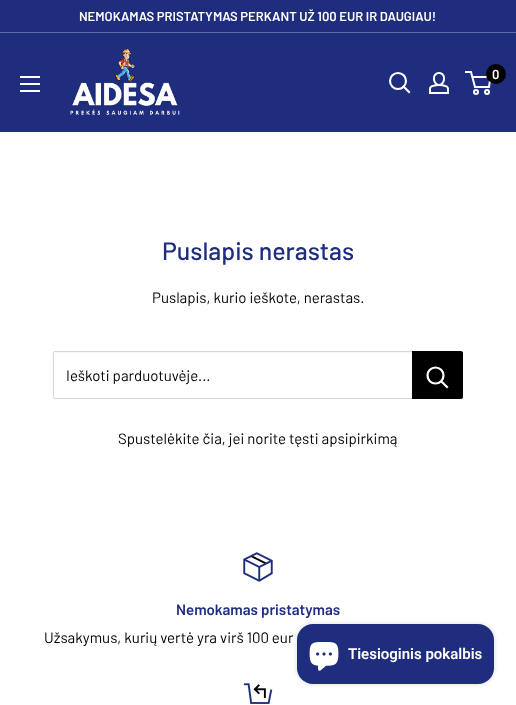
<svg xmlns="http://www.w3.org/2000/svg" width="516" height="705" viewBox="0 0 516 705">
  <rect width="100%" height="100%" fill="rgb(255,255,255)"/>
  <rect x="0" y="0" width="516" height="32" fill="rgb(30,45,125)"/>
  <rect x="0" y="32" width="516" height="1" fill="rgb(98,108,164)"/>
  <text x="79" y="21" font-family="Barlow" font-size="13" font-weight="600" fill="rgb(255,255,255)">NEMOKAMAS PRISTATYMAS PERKANT UŽ 100 EUR IR DAUGIAU!</text>
  <rect x="0" y="33" width="516" height="99" fill="rgb(30,45,125)"/>
  <image x="70" y="48" width="110" height="68" href="pic1.png"/>
  <path d="M409 92L403.5 86.5" fill="none" stroke="rgb(255,255,255)" stroke-width="2.1" stroke-linecap="square"/>
  <circle cx="398" cy="81" r="8" fill="none" stroke="rgb(255,255,255)" stroke-width="2.1"/>
  <image x="429" y="72" width="20" height="22" href="pic2.png"/>
  <circle cx="476" cy="92" r="2" fill="none" stroke="rgb(255,255,255)" stroke-width="2"/>
  <circle cx="487" cy="92" r="2" fill="none" stroke="rgb(255,255,255)" stroke-width="2"/>
  <path d="M472.5 77H490.5L489 87H475L471 72H465" fill="none" stroke="rgb(255,255,255)" stroke-width="2"/>
  <circle cx="496" cy="74" r="10" fill="rgb(0,0,0)"/>
  <text x="492" y="79" font-family="Barlow" font-size="13" font-weight="600" fill="rgb(255,255,255)">0</text>
  <image x="20" y="76" width="20" height="16" href="pic3.png"/>
  <text x="162" y="260" font-family="Barlow" font-size="25" font-weight="500" fill="rgb(30,45,125)">Puslapis nerastas</text>
  <text x="152" y="303" font-family="Barlow" font-size="15" fill="rgb(0,0,0)">Puslapis, kurio ieškote, nerastas.</text>
  <path d="M55 353H412V352H55C54 352 54 353 54 354C54 353 54 353 55 353Z" fill="rgb(248,248,248)"/>
  <rect x="54" y="351" width="358" height="1" fill="rgb(212,214,216)"/>
  <rect x="54" y="398" width="358" height="1" fill="rgb(212,214,216)"/>
  <rect x="53" y="352" width="1" height="46" fill="rgb(212,214,216)"/>
  <text x="66" y="381" font-family="Barlow" font-size="15" fill="rgb(0,0,0)">Ieškoti parduotuvėje...</text>
  <path d="M412 351H461C462 351 463 352 463 353V397C463 398 462 399 461 399H412Z" fill="rgb(0,0,0)"/>
  <path d="M447 387L441.5 381.5" fill="none" stroke="rgb(255,255,255)" stroke-width="2.2" stroke-linecap="square"/>
  <circle cx="435.5" cy="375.5" r="8" fill="none" stroke="rgb(255,255,255)" stroke-width="2.2"/>
  <text x="118" y="444" font-family="Barlow" font-size="15" fill="rgb(0,0,0)">Spustelėkite čia, jei norite tęsti apsipirkimą</text>
  <image x="243" y="552" width="30" height="30" href="pic4.png"/>
  <text x="176" y="615" font-family="Barlow" font-size="15" font-weight="600" fill="rgb(30,45,125)">Nemokamas pristatymas</text>
  <text x="44" y="643" font-family="Barlow" font-size="15" fill="rgb(0,0,0)">Užsakymus, kurių vertė yra virš 100 eur</text>
  <image x="243" y="683" width="30" height="21" href="pic5.png"/>
  <rect x="297" y="624" width="197" height="60" rx="16" fill="rgba(0,0,0,0.15)" filter="blur(2.5px)"/>
  <rect x="297" y="624" width="197" height="60" rx="16" fill="rgb(30,45,125)"/>
  <image x="309" y="642" width="30" height="29" href="pic6.png"/>
  <text x="348" y="659" font-family="Roboto" font-size="15" font-weight="600" fill="rgb(255,255,255)">Tiesioginis pokalbis</text>
</svg>
